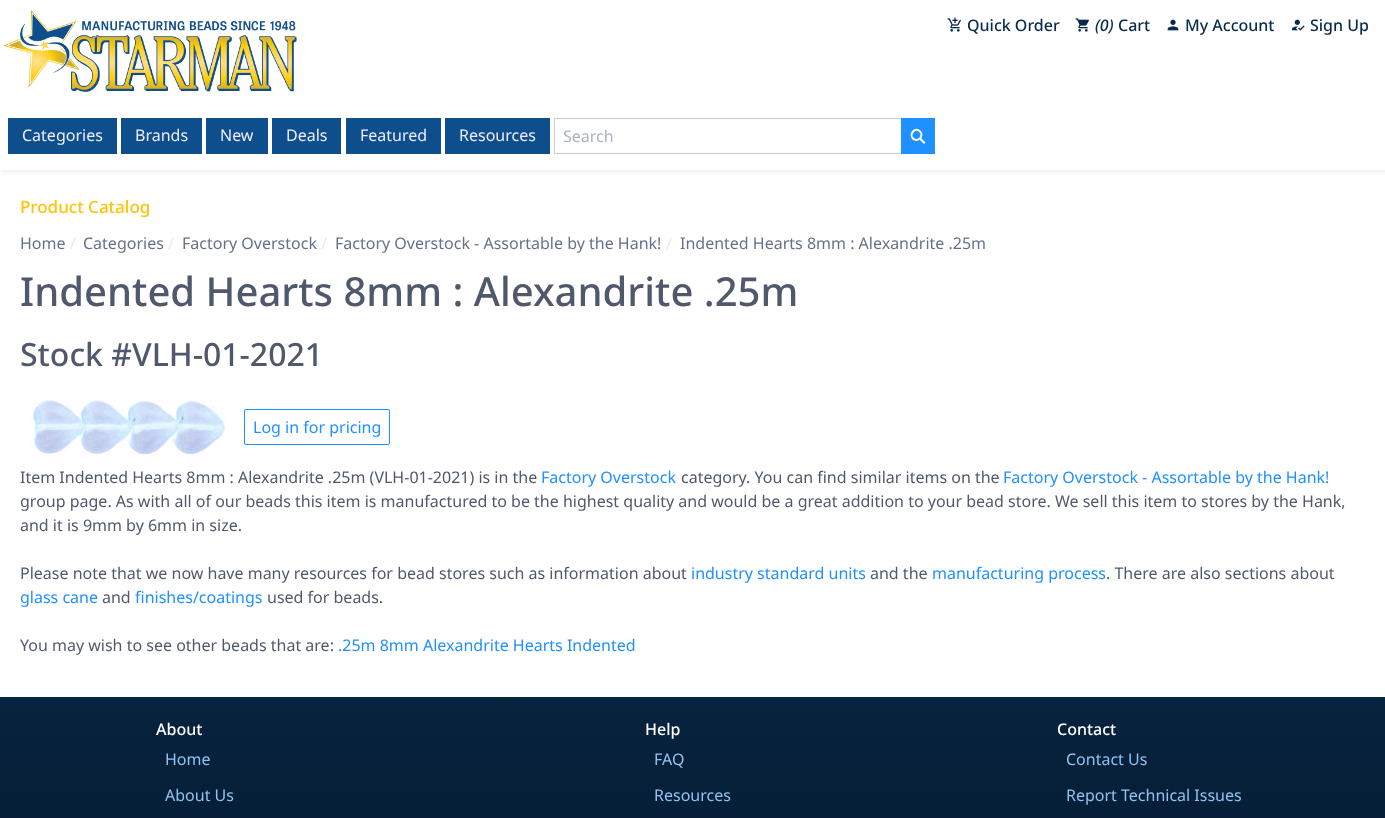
<svg xmlns="http://www.w3.org/2000/svg" width="1385" height="818" viewBox="0 0 1385 818">
  <defs>
    <clipPath id="clip1"><path d="M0 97H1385V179H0ZM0 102H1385V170H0Z" clip-rule="evenodd"/></clipPath>
    <linearGradient id="g1" gradientUnits="userSpaceOnUse" x1="693" y1="697" x2="693" y2="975"><stop offset="0" stop-color="rgb(7,35,63)"/><stop offset="1" stop-color="rgb(5,25,45)"/></linearGradient>
  </defs>
  <rect width="100%" height="100%" fill="rgb(255,255,255)"/>
  <image x="3" y="10" width="294" height="82" href="pic1.png"/>
  <image x="947" y="17" width="14" height="15" href="pic2.png"/>
  <text x="967" y="31" font-family="Noto Sans" font-size="16" font-weight="500" fill="rgb(8,43,76)">Quick Order</text>
  <image x="1075" y="18" width="14" height="14" href="pic3.png"/>
  <text x="1095" y="31" font-family="Noto Sans" font-size="16" font-weight="500" font-style="italic" fill="rgb(8,43,76)">(0)</text>
  <text x="1118" y="31" font-family="Noto Sans" font-size="16" font-weight="500" fill="rgb(8,43,76)">Cart</text>
  <image x="1167" y="19" width="12" height="12" href="pic4.png"/>
  <text x="1185" y="31" font-family="Noto Sans" font-size="16" font-weight="500" fill="rgb(8,43,76)">My Account</text>
  <image x="1292" y="19" width="13" height="12" href="pic5.png"/>
  <text x="1310" y="31" font-family="Noto Sans" font-size="16" font-weight="500" fill="rgb(8,43,76)">Sign Up</text>
  <g clip-path="url(#clip1)">
    <rect x="2" y="104" width="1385" height="68" fill="rgb(237,237,237)" filter="blur(2px)"/>
  </g>
  <rect x="8" y="118" width="109" height="36" fill="rgb(15,78,140)"/>
  <text x="22" y="141" font-family="Noto Sans" font-size="16" fill="rgb(238,238,255)">Categories</text>
  <rect x="121" y="118" width="81" height="36" fill="rgb(15,78,140)"/>
  <text x="135" y="141" font-family="Noto Sans" font-size="16" fill="rgb(238,238,255)">Brands</text>
  <rect x="206" y="118" width="62" height="36" fill="rgb(15,78,140)"/>
  <text x="220" y="141" font-family="Noto Sans" font-size="16" fill="rgb(238,238,255)">New</text>
  <rect x="272" y="118" width="69" height="36" fill="rgb(15,78,140)"/>
  <text x="286" y="141" font-family="Noto Sans" font-size="16" fill="rgb(238,238,255)">Deals</text>
  <rect x="346" y="118" width="95" height="36" fill="rgb(15,78,140)"/>
  <text x="360" y="141" font-family="Noto Sans" font-size="16" fill="rgb(238,238,255)">Featured</text>
  <rect x="445" y="118" width="105" height="36" fill="rgb(15,78,140)"/>
  <text x="459" y="141" font-family="Noto Sans" font-size="16" fill="rgb(238,238,255)">Resources</text>
  <rect x="554.5" y="118.5" width="347" height="35" fill="none" stroke="rgb(202,206,215)"/>
  <text x="563" y="142" font-family="Noto Sans" font-size="16" fill="rgb(172,179,194)">Search</text>
  <rect x="901" y="118" width="34" height="36" fill="rgb(30,144,255)"/>
  <path d="M920 131.5C924.5 136 917.5 143 913 138.5C908.5 134 915.5 126.5 920 131.5Z" fill="none" stroke="rgb(255,255,255)" stroke-width="2"/>
  <path d="M921 138L925.5 142.5L924 144L919.5 139.5Z" fill="rgb(255,255,255)"/>
  <text x="20" y="213" font-family="Noto Sans" font-size="17" font-weight="500" fill="rgb(255,195,9)">Product Catalog</text>
  <text x="20" y="249" font-family="Noto Sans" font-size="16" fill="rgb(102,113,137)">Home</text>
  <text x="70" y="249" font-family="Noto Sans" font-size="16" fill="rgb(231,233,237)">/</text>
  <text x="83" y="249" font-family="Noto Sans" font-size="16" fill="rgb(102,113,137)">Categories</text>
  <text x="168" y="249" font-family="Noto Sans" font-size="16" fill="rgb(231,233,237)">/</text>
  <text x="182" y="249" font-family="Noto Sans" font-size="16" fill="rgb(102,113,137)">Factory Overstock</text>
  <text x="321" y="249" font-family="Noto Sans" font-size="16" fill="rgb(231,233,237)">/</text>
  <text x="335" y="249" font-family="Noto Sans" font-size="16" fill="rgb(102,113,137)">Factory Overstock - Assortable by the Hank!</text>
  <text x="666" y="249" font-family="Noto Sans" font-size="16" fill="rgb(231,233,237)">/</text>
  <text x="680" y="249" font-family="Noto Sans" font-size="16" fill="rgb(102,113,137)">Indented Hearts 8mm : Alexandrite .25m</text>
  <text x="20" y="306" font-family="Noto Sans" font-size="40" font-weight="500" fill="rgb(80,89,108)">Indented Hearts 8mm : Alexandrite .25m</text>
  <text x="20" y="366" font-family="Noto Sans" font-size="32" font-weight="500" fill="rgb(80,89,108)">Stock #VLH-01-2021</text>
  <image x="28" y="398" width="200" height="57" href="pic6.png"/>
  <rect x="244.5" y="409.5" width="145" height="35" rx="1.5" fill="none" stroke="rgb(30,144,255)"/>
  <text x="253" y="433" font-family="Noto Sans" font-size="16" fill="rgb(30,144,255)">Log in for pricing</text>
  <text x="20" y="483" font-family="Noto Sans" font-size="16" fill="rgb(80,89,108)">Item Indented Hearts 8mm : Alexandrite .25m (VLH-01-2021) is in the</text>
  <text x="541" y="483" font-family="Noto Sans" font-size="16" fill="rgb(30,144,255)">Factory Overstock</text>
  <text x="681" y="483" font-family="Noto Sans" font-size="16" fill="rgb(80,89,108)">category. You can find similar items on the</text>
  <text x="1003" y="483" font-family="Noto Sans" font-size="16" fill="rgb(30,144,255)">Factory Overstock - Assortable by the Hank!</text>
  <g font-family="Noto Sans" font-size="16" fill="rgb(80,89,108)">
    <text>
      <tspan x="20" y="507">group page. As with all of our beads this item is manufactured to be the highest quality and would be a great addition to your bead store. We sell this item to stores by the Hank,</tspan>
      <tspan x="20" y="531">and it is 9mm by 6mm in size.</tspan>
    </text>
    <text x="20" y="579">Please note that we now have many resources for bead stores such as information about</text>
  </g>
  <text x="691" y="579" font-family="Noto Sans" font-size="16" fill="rgb(30,144,255)">industry standard units</text>
  <text x="870" y="579" font-family="Noto Sans" font-size="16" fill="rgb(80,89,108)">and the</text>
  <text x="932" y="579" font-family="Noto Sans" font-size="16" fill="rgb(30,144,255)">manufacturing process</text>
  <text x="1106" y="579" font-family="Noto Sans" font-size="16" fill="rgb(80,89,108)">. There are also sections about</text>
  <text x="20" y="603" font-family="Noto Sans" font-size="16" fill="rgb(30,144,255)">glass cane</text>
  <text x="102" y="603" font-family="Noto Sans" font-size="16" fill="rgb(80,89,108)">and</text>
  <text x="135" y="603" font-family="Noto Sans" font-size="16" fill="rgb(30,144,255)">finishes/coatings</text>
  <g font-family="Noto Sans" font-size="16" fill="rgb(80,89,108)">
    <text x="267" y="603">used for beads.</text>
    <text x="20" y="651">You may wish to see other beads that are:</text>
  </g>
  <text x="338" y="651" font-family="Noto Sans" font-size="16" fill="rgb(30,144,255)">.25m 8mm Alexandrite Hearts Indented</text>
  <rect x="0" y="697" width="1385" height="121" fill="url(#g1)"/>
  <text x="156" y="735" font-family="Noto Sans" font-size="16" font-weight="500" fill="rgb(255,255,255)">About</text>
  <g font-family="Noto Sans" font-size="16" fill="rgb(145,195,242)">
    <text x="165" y="765">Home</text>
    <text x="165" y="801">About Us</text>
  </g>
  <text x="645" y="735" font-family="Noto Sans" font-size="16" font-weight="500" fill="rgb(255,255,255)">Help</text>
  <g font-family="Noto Sans" font-size="16" fill="rgb(145,195,242)">
    <text x="654" y="765">FAQ</text>
    <text x="654" y="801">Resources</text>
  </g>
  <text x="1057" y="735" font-family="Noto Sans" font-size="16" font-weight="500" fill="rgb(255,255,255)">Contact</text>
  <g font-family="Noto Sans" font-size="16" fill="rgb(145,195,242)">
    <text x="1066" y="765">Contact Us</text>
    <text x="1066" y="801">Report Technical Issues</text>
  </g>
</svg>
